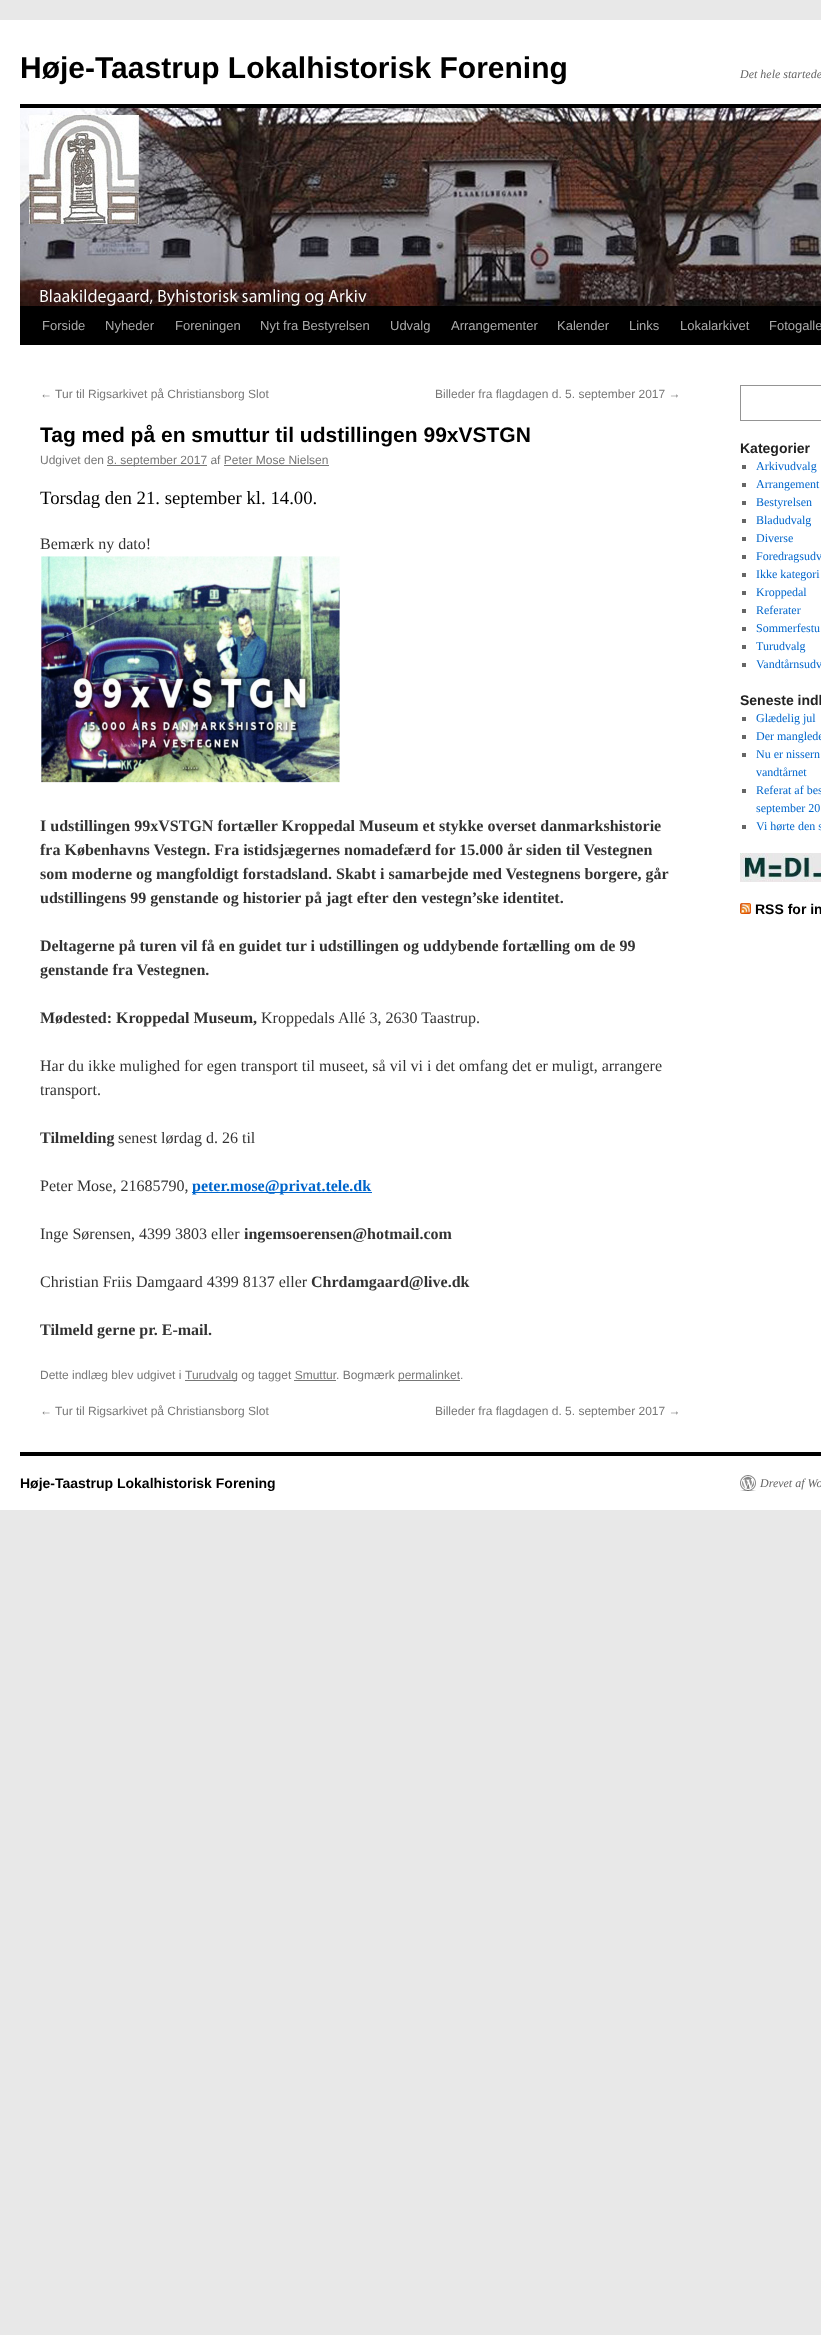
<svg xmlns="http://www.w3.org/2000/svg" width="821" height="2335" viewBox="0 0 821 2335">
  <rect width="100%" height="100%" fill="rgb(232,232,232)"/>
  <rect x="0" y="20" width="821" height="1490" fill="rgb(255,255,255)"/>
  <text x="20" y="78" font-family="Liberation Sans" font-size="30" font-weight="bold" fill="rgb(0,0,0)">Høje-Taastrup Lokalhistorisk Forening</text>
  <text x="740" y="78" font-family="Liberation Serif" font-size="12" font-style="italic" fill="rgb(102,102,102)">Det hele startede</text>
  <rect x="20" y="104" width="801" height="4" fill="rgb(0,0,0)"/>
  <rect x="20" y="306" width="801" height="39" fill="rgb(0,0,0)"/>
  <image x="20" y="108" width="801" height="198" href="pic1.png"/>
  <g font-family="Liberation Sans" font-size="13" fill="rgb(170,170,170)">
    <text x="42" y="330">Forside</text>
    <text x="105" y="330">Nyheder</text>
    <text x="175" y="330">Foreningen</text>
    <text x="260" y="330">Nyt fra Bestyrelsen</text>
    <text x="390" y="330">Udvalg</text>
    <text x="451" y="330">Arrangementer</text>
    <text x="557" y="330">Kalender</text>
    <text x="629" y="330">Links</text>
    <text x="680" y="330">Lokalarkivet</text>
    <text x="769" y="330">Fotogalle</text>
  </g>
  <g font-family="Liberation Sans" font-size="12" fill="rgb(119,119,119)">
    <text x="40" y="398">← Tur til Rigsarkivet på Christiansborg Slot</text>
    <text x="435" y="398">Billeder fra flagdagen d. 5. september 2017 →</text>
  </g>
  <text x="40" y="442" font-family="Liberation Sans" font-size="21" font-weight="bold" fill="rgb(0,0,0)">Tag med på en smuttur til udstillingen 99xVSTGN</text>
  <text x="40" y="464" font-family="Liberation Sans" font-size="12" fill="rgb(119,119,119)">Udgivet den</text>
  <rect x="107" y="465" width="100" height="1" fill="rgb(119,119,119)"/>
  <text x="107" y="464" font-family="Liberation Sans" font-size="12" fill="rgb(119,119,119)">8. september 2017 af Peter Mose Nielsen</text>
  <rect x="224" y="465" width="105" height="1" fill="rgb(119,119,119)"/>
  <text x="40" y="504" font-family="Liberation Serif" font-size="18.75" fill="rgb(0,0,0)">Torsdag den 21. september kl. 14.00.</text>
  <text x="40" y="549" font-family="Liberation Serif" font-size="16" fill="rgb(51,51,51)">Bemærk ny dato!</text>
  <image x="41" y="556" width="299" height="227" href="pic2.png"/>
  <g font-family="Liberation Serif" font-size="16" font-weight="bold" fill="rgb(51,51,51)">
    <text>
      <tspan x="40" y="831">I udstillingen 99xVSTGN fortæller Kroppedal Museum et stykke overset danmarkshistorie</tspan>
      <tspan x="40" y="855">fra Københavns Vestegn. Fra istidsjægernes nomadefærd for 15.000 år siden til Vestegnen</tspan>
      <tspan x="40" y="879">som moderne og mangfoldigt forstadsland. Skabt i samarbejde med Vestegnens borgere, går</tspan>
      <tspan x="40" y="903">udstillingens 99 genstande og historier på jagt efter den vestegn’ske identitet.</tspan>
    </text>
    <text>
      <tspan x="40" y="951">Deltagerne på turen vil få en guidet tur i udstillingen og uddybende fortælling om de 99</tspan>
      <tspan x="40" y="975">genstande fra Vestegnen.</tspan>
    </text>
    <text x="40" y="1023">Mødested: Kroppedal Museum,</text>
  </g>
  <g font-family="Liberation Serif" font-size="16" fill="rgb(51,51,51)">
    <text x="261" y="1023">Kroppedals Allé 3, 2630 Taastrup.</text>
    <text>
      <tspan x="40" y="1071">Har du ikke mulighed for egen transport til museet, så vil vi i det omfang det er muligt, arrangere</tspan>
      <tspan x="40" y="1095">transport.</tspan>
    </text>
  </g>
  <text x="40" y="1143" font-family="Liberation Serif" font-size="16" font-weight="bold" fill="rgb(51,51,51)">Tilmelding</text>
  <g font-family="Liberation Serif" font-size="16" fill="rgb(51,51,51)">
    <text x="118" y="1143">senest lørdag d. 26 til</text>
    <text x="40" y="1191">Peter Mose, 21685790,</text>
  </g>
  <rect x="192" y="1192" width="180" height="1" fill="rgb(0,102,204)"/>
  <text x="192" y="1191" font-family="Liberation Serif" font-size="16" font-weight="bold" fill="rgb(0,102,204)">peter.mose@privat.tele.dk</text>
  <text x="40" y="1239" font-family="Liberation Serif" font-size="16" fill="rgb(51,51,51)">Inge Sørensen, 4399 3803 eller</text>
  <text x="244" y="1239" font-family="Liberation Serif" font-size="16" font-weight="bold" fill="rgb(51,51,51)">ingemsoerensen@hotmail.com</text>
  <text x="40" y="1287" font-family="Liberation Serif" font-size="16" fill="rgb(51,51,51)">Christian Friis Damgaard 4399 8137 eller</text>
  <g font-family="Liberation Serif" font-size="16" font-weight="bold" fill="rgb(51,51,51)">
    <text x="311" y="1287">Chrdamgaard@live.dk</text>
    <text x="40" y="1335">Tilmeld gerne pr. E-mail.</text>
  </g>
  <text x="40" y="1379" font-family="Liberation Sans" font-size="12" fill="rgb(119,119,119)">Dette indlæg blev udgivet i</text>
  <rect x="185" y="1380" width="52" height="1" fill="rgb(119,119,119)"/>
  <g font-family="Liberation Sans" font-size="12" fill="rgb(119,119,119)">
    <text x="185" y="1379">Turudvalg og tagget Smuttur</text>
    <text x="336" y="1379">. Bogmærk</text>
  </g>
  <rect x="398" y="1380" width="62" height="1" fill="rgb(119,119,119)"/>
  <text x="398" y="1379" font-family="Liberation Sans" font-size="12" fill="rgb(119,119,119)">permalinket.</text>
  <rect x="294" y="1380" width="42" height="1" fill="rgb(119,119,119)"/>
  <g font-family="Liberation Sans" font-size="12" fill="rgb(119,119,119)">
    <text x="40" y="1415">← Tur til Rigsarkivet på Christiansborg Slot</text>
    <text x="435" y="1415">Billeder fra flagdagen d. 5. september 2017 →</text>
  </g>
  <rect x="740.5" y="385.5" width="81" height="35" fill="none" stroke="rgb(148,148,148)"/>
  <text x="740" y="453" font-family="Liberation Sans" font-size="14" font-weight="bold" fill="rgb(34,34,34)">Kategorier</text>
  <rect x="742" y="465" width="4" height="4" fill="rgb(102,102,102)"/>
  <text x="756" y="470" font-family="Liberation Serif" font-size="12" fill="rgb(0,102,204)">Arkivudvalg</text>
  <rect x="742" y="483" width="4" height="4" fill="rgb(102,102,102)"/>
  <text x="756" y="488" font-family="Liberation Serif" font-size="12" fill="rgb(0,102,204)">Arrangement</text>
  <rect x="742" y="501" width="4" height="4" fill="rgb(102,102,102)"/>
  <text x="756" y="506" font-family="Liberation Serif" font-size="12" fill="rgb(0,102,204)">Bestyrelsen</text>
  <rect x="742" y="519" width="4" height="4" fill="rgb(102,102,102)"/>
  <text x="756" y="524" font-family="Liberation Serif" font-size="12" fill="rgb(0,102,204)">Bladudvalg</text>
  <rect x="742" y="537" width="4" height="4" fill="rgb(102,102,102)"/>
  <text x="756" y="542" font-family="Liberation Serif" font-size="12" fill="rgb(0,102,204)">Diverse</text>
  <rect x="742" y="555" width="4" height="4" fill="rgb(102,102,102)"/>
  <text x="756" y="560" font-family="Liberation Serif" font-size="12" fill="rgb(0,102,204)">Foredragsudv</text>
  <rect x="742" y="573" width="4" height="4" fill="rgb(102,102,102)"/>
  <text x="756" y="578" font-family="Liberation Serif" font-size="12" fill="rgb(0,102,204)">Ikke kategori</text>
  <rect x="742" y="591" width="4" height="4" fill="rgb(102,102,102)"/>
  <text x="756" y="596" font-family="Liberation Serif" font-size="12" fill="rgb(0,102,204)">Kroppedal</text>
  <rect x="742" y="609" width="4" height="4" fill="rgb(102,102,102)"/>
  <text x="756" y="614" font-family="Liberation Serif" font-size="12" fill="rgb(0,102,204)">Referater</text>
  <rect x="742" y="627" width="4" height="4" fill="rgb(102,102,102)"/>
  <text x="756" y="632" font-family="Liberation Serif" font-size="12" fill="rgb(0,102,204)">Sommerfestu</text>
  <rect x="742" y="645" width="4" height="4" fill="rgb(102,102,102)"/>
  <text x="756" y="650" font-family="Liberation Serif" font-size="12" fill="rgb(0,102,204)">Turudvalg</text>
  <rect x="742" y="663" width="4" height="4" fill="rgb(102,102,102)"/>
  <text x="756" y="668" font-family="Liberation Serif" font-size="12" fill="rgb(0,102,204)">Vandtårnsudv</text>
  <text x="740" y="705" font-family="Liberation Sans" font-size="14" font-weight="bold" fill="rgb(34,34,34)">Seneste indl</text>
  <rect x="742" y="717" width="4" height="4" fill="rgb(102,102,102)"/>
  <text x="756" y="722" font-family="Liberation Serif" font-size="12" fill="rgb(0,102,204)">Glædelig jul</text>
  <rect x="742" y="735" width="4" height="4" fill="rgb(102,102,102)"/>
  <text x="756" y="740" font-family="Liberation Serif" font-size="12" fill="rgb(0,102,204)">Der manglede</text>
  <rect x="742" y="753" width="4" height="4" fill="rgb(102,102,102)"/>
  <g font-family="Liberation Serif" font-size="12" fill="rgb(0,102,204)">
    <text>
      <tspan x="756" y="758">Nu er nissern</tspan>
      <tspan x="756" y="776">vandtårnet</tspan>
    </text>
  </g>
  <rect x="742" y="789" width="4" height="4" fill="rgb(102,102,102)"/>
  <g font-family="Liberation Serif" font-size="12" fill="rgb(0,102,204)">
    <text>
      <tspan x="756" y="794">Referat af bes</tspan>
      <tspan x="756" y="812">september 20</tspan>
    </text>
  </g>
  <rect x="742" y="825" width="4" height="4" fill="rgb(102,102,102)"/>
  <text x="756" y="830" font-family="Liberation Serif" font-size="12" fill="rgb(0,102,204)">Vi hørte den s</text>
  <image x="740" y="853" width="81" height="29" href="pic3.png"/>
  <image x="740" y="903" width="11" height="11" href="pic4.png"/>
  <text x="755" y="914" font-family="Liberation Sans" font-size="14" font-weight="bold" fill="rgb(0,0,0)">RSS for in</text>
  <rect x="20" y="1452" width="801" height="4" fill="rgb(0,0,0)"/>
  <text x="20" y="1488" font-family="Liberation Sans" font-size="14" font-weight="bold" fill="rgb(0,0,0)">Høje-Taastrup Lokalhistorisk Forening</text>
  <image x="740" y="1475" width="16" height="16" href="pic5.png"/>
  <text x="760" y="1487" font-family="Liberation Serif" font-size="12" font-style="italic" fill="rgb(102,102,102)">Drevet af Wo</text>
</svg>
